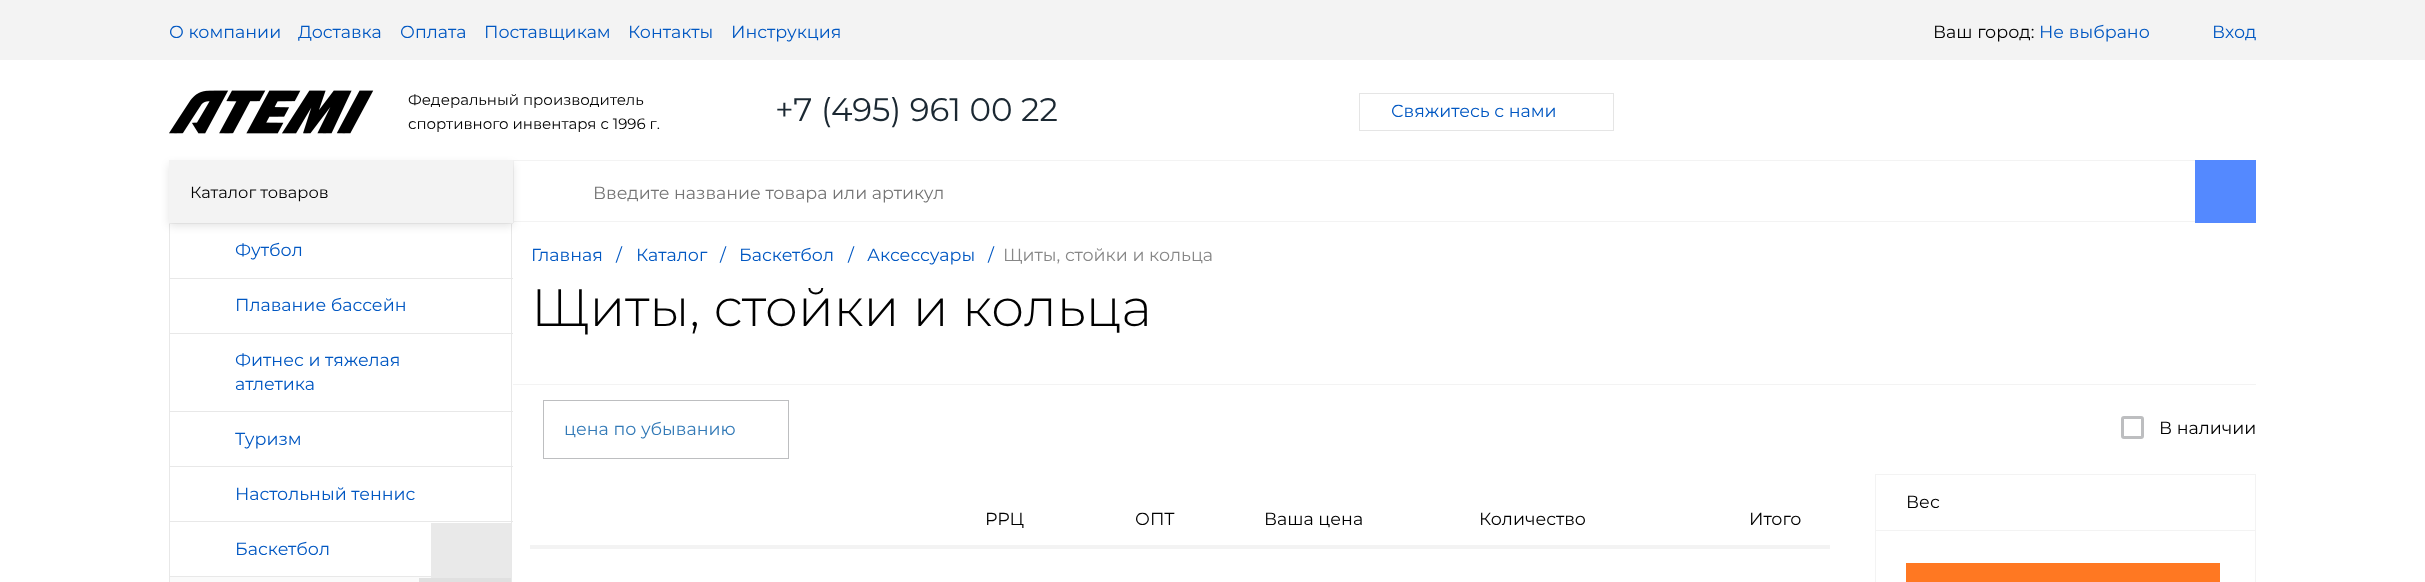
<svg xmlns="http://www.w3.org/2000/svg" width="2425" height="582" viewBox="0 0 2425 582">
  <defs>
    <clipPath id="clip1"><path d="M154 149H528V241H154ZM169 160H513V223H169Z" clip-rule="evenodd"/></clipPath>
  </defs>
  <rect width="100%" height="100%" fill="rgb(255,255,255)"/>
  <rect x="0" y="0" width="2425" height="60" fill="rgb(243,243,243)"/>
  <g font-family="Montserrat" font-size="17.5" fill="rgb(0,87,194)">
    <text x="169" y="38">О компании</text>
    <text x="298" y="38">Доставка</text>
    <text x="400" y="38">Оплата</text>
    <text x="484" y="38">Поставщикам</text>
    <text x="628" y="38">Контакты</text>
    <text x="731" y="38">Инструкция</text>
  </g>
  <text x="1933" y="38" font-family="Montserrat" font-size="17.5" fill="rgb(0,0,0)">Ваш город:</text>
  <g font-family="Montserrat" font-size="17.5" fill="rgb(0,87,194)">
    <text x="2039" y="38">Не выбрано</text>
    <text x="2212" y="38">Вход</text>
  </g>
  <image x="169" y="90" width="205" height="44" href="pic1.png"/>
  <g font-family="Montserrat" font-size="15" fill="rgb(0,0,0)">
    <text>
      <tspan x="408" y="105">Федеральный производитель</tspan>
      <tspan x="408" y="129">спортивного инвентаря c 1996 г.</tspan>
    </text>
  </g>
  <text x="775" y="121" font-family="Montserrat" font-size="32.5" fill="rgb(27,40,50)">+7 (495) 961 00 22</text>
  <rect x="1359.5" y="93.5" width="254" height="37" fill="none" stroke="rgb(229,229,229)"/>
  <text x="1391" y="117" font-family="Montserrat" font-size="17.5" fill="rgb(0,87,194)">Свяжитесь с нами</text>
  <rect x="169" y="223" width="344" height="1" fill="rgb(243,243,243)"/>
  <rect x="511" y="224" width="1" height="358" fill="rgb(232,232,232)"/>
  <rect x="169" y="278" width="344" height="1" fill="rgb(232,232,232)"/>
  <rect x="169" y="224" width="1" height="55" fill="rgb(232,232,232)"/>
  <rect x="513" y="160" width="1682" height="1" fill="rgb(243,243,243)"/>
  <rect x="513" y="221" width="1682" height="1" fill="rgb(243,243,243)"/>
  <rect x="169" y="160" width="345" height="63" fill="rgb(243,243,243)"/>
  <g clip-path="url(#clip1)">
    <rect x="169" y="164" width="344" height="62" fill="rgba(0,0,0,0.11)" filter="blur(4.5px)"/>
  </g>
  <text x="190" y="198" font-family="Montserrat" font-size="16.25" fill="rgb(0,0,0)">Каталог товаров</text>
  <text x="235" y="256" font-family="Montserrat" font-size="17.5" fill="rgb(0,87,194)">Футбол</text>
  <rect x="169" y="333" width="344" height="1" fill="rgb(232,232,232)"/>
  <rect x="169" y="279" width="1" height="55" fill="rgb(232,232,232)"/>
  <text x="235" y="311" font-family="Montserrat" font-size="17.5" fill="rgb(0,87,194)">Плавание бассейн</text>
  <rect x="169" y="411" width="344" height="1" fill="rgb(232,232,232)"/>
  <rect x="169" y="334" width="1" height="79" fill="rgb(232,232,232)"/>
  <g font-family="Montserrat" font-size="17.5" fill="rgb(0,87,194)">
    <text>
      <tspan x="235" y="366">Фитнес и тяжелая</tspan>
      <tspan x="235" y="390">атлетика</tspan>
    </text>
  </g>
  <rect x="169" y="466" width="344" height="1" fill="rgb(232,232,232)"/>
  <rect x="169" y="413" width="1" height="55" fill="rgb(232,232,232)"/>
  <text x="235" y="445" font-family="Montserrat" font-size="17.5" fill="rgb(0,87,194)">Туризм</text>
  <rect x="169" y="521" width="344" height="1" fill="rgb(232,232,232)"/>
  <rect x="169" y="468" width="1" height="114" fill="rgb(232,232,232)"/>
  <g font-family="Montserrat" font-size="17.5" fill="rgb(0,87,194)">
    <text x="235" y="500">Настольный теннис</text>
    <text x="235" y="555">Баскетбол</text>
  </g>
  <rect x="431" y="523" width="80" height="55" fill="rgb(233,233,233)"/>
  <rect x="170" y="577" width="261" height="5" fill="rgb(250,250,250)"/>
  <rect x="170" y="576" width="261" height="1" fill="rgb(232,232,232)"/>
  <rect x="419" y="578" width="92" height="4" fill="rgb(224,224,224)"/>
  <rect x="2195" y="160" width="61" height="63" fill="rgb(84,137,255)"/>
  <text x="593" y="199" font-family="Montserrat" font-size="17.5" fill="rgb(117,117,117)">Введите название товара или артикул</text>
  <g font-family="Montserrat" font-size="17.5" fill="rgb(0,87,194)">
    <text x="531" y="261">Главная</text>
    <text x="616" y="261">/</text>
    <text x="636" y="261">Каталог</text>
    <text x="720" y="261">/</text>
    <text x="739" y="261">Баскетбол</text>
    <text x="848" y="261">/</text>
    <text x="867" y="261">Аксессуары</text>
    <text x="988" y="261">/</text>
  </g>
  <text x="1003" y="261" font-family="Montserrat" font-size="17.5" fill="rgb(135,135,135)">Щиты, стойки и кольца</text>
  <text x="531" y="326" font-family="Montserrat" font-size="52.5" font-weight="300" fill="rgb(0,0,0)">Щиты, стойки и кольца</text>
  <rect x="513" y="384" width="1743" height="1" fill="rgb(243,243,243)"/>
  <rect x="543.5" y="400.5" width="245" height="58" fill="none" stroke="rgb(189,190,192)"/>
  <text x="564" y="435" font-family="Montserrat" font-size="17.5" fill="rgb(51,122,183)">цена по убыванию</text>
  <rect x="2122.5" y="417.5" width="20" height="20" rx="1.5" fill="none" stroke="rgb(189,190,192)" stroke-width="3"/>
  <text x="2159" y="434" font-family="Montserrat" font-size="17.5" fill="rgb(0,0,0)">В наличии</text>
  <rect x="2255" y="474" width="1" height="108" fill="rgb(243,243,243)"/>
  <rect x="1875" y="474" width="1" height="108" fill="rgb(243,243,243)"/>
  <rect x="1876" y="474" width="379" height="1" fill="rgb(243,243,243)"/>
  <rect x="1876" y="530" width="379" height="1" fill="rgb(243,243,243)"/>
  <text x="1906" y="508" font-family="Montserrat" font-size="17.5" fill="rgb(0,0,0)">Вес</text>
  <rect x="1906" y="563" width="314" height="19" fill="rgb(255,120,34)"/>
  <rect x="530" y="545" width="1300" height="4" fill="rgb(243,243,243)"/>
  <g font-family="Montserrat" font-size="17.5" fill="rgb(0,0,0)">
    <text x="985" y="525">РРЦ</text>
    <text x="1135" y="525">ОПТ</text>
    <text x="1264" y="525">Ваша цена</text>
    <text x="1479" y="525">Количество</text>
    <text x="1749" y="525">Итого</text>
  </g>
</svg>
